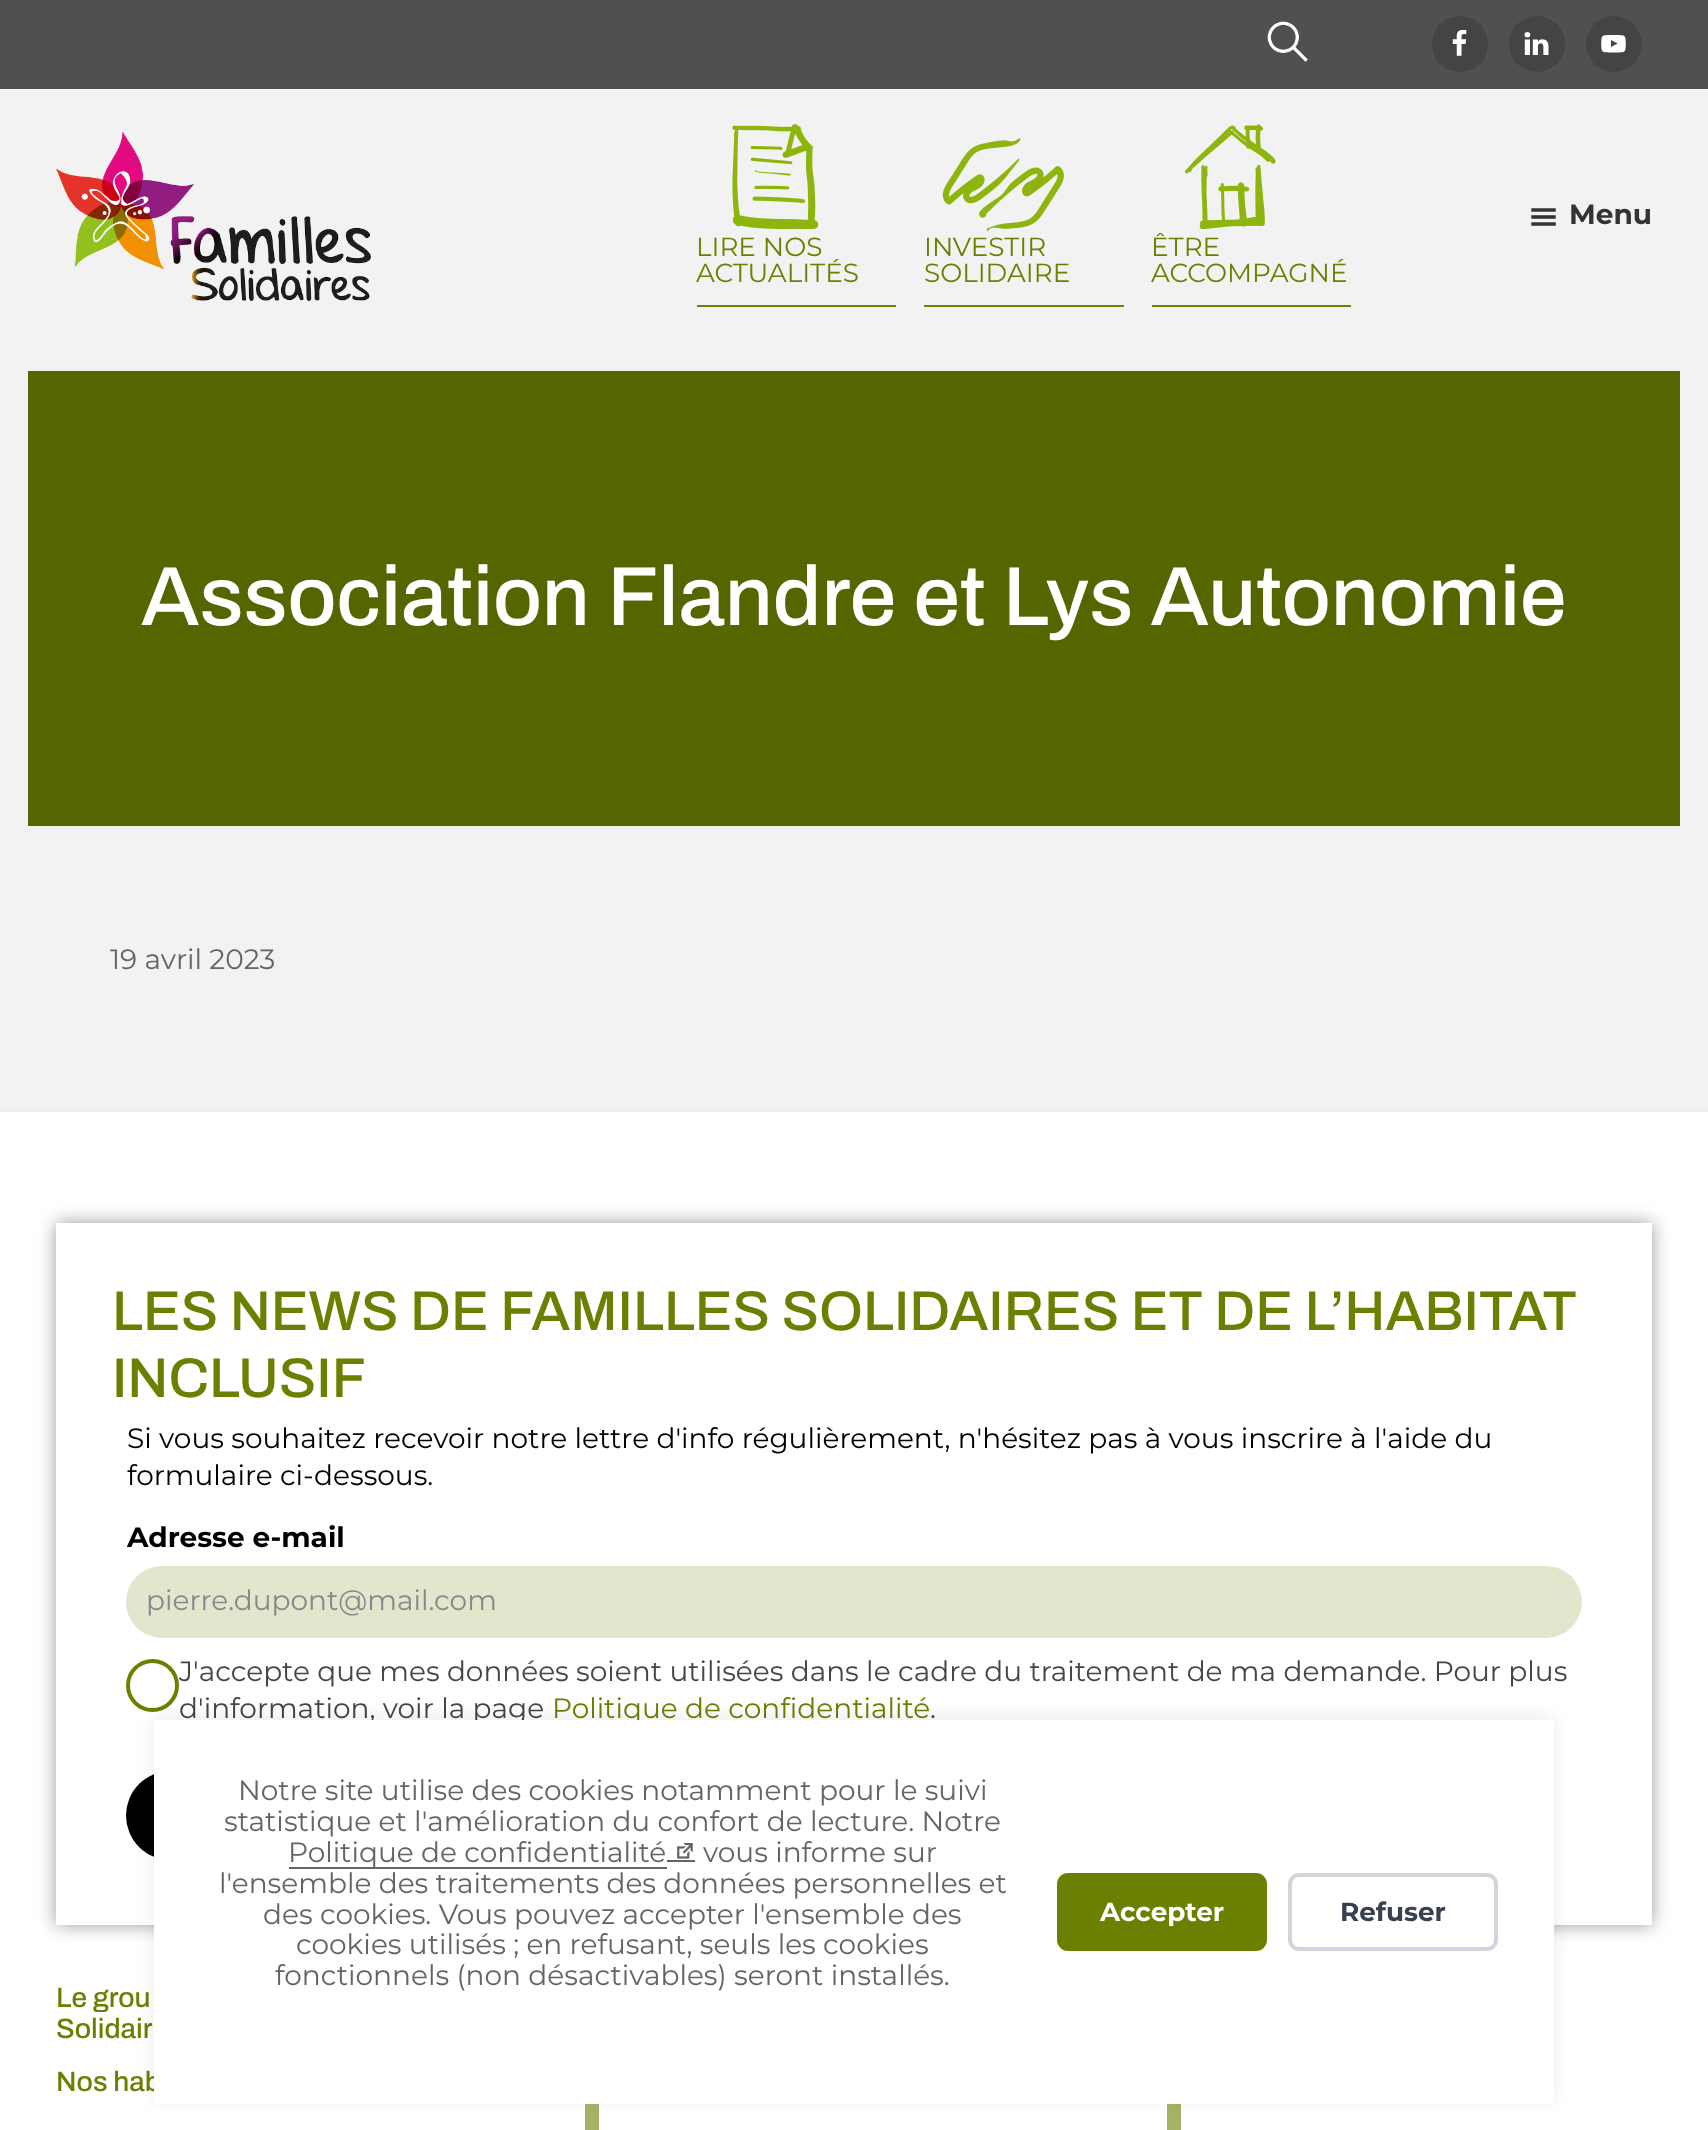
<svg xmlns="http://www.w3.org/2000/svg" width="1708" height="2130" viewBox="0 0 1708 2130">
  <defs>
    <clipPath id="clip1"><path d="M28 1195H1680V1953H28ZM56 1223H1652V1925H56Z" clip-rule="evenodd"/></clipPath>
  </defs>
  <rect width="100%" height="100%" fill="rgb(242,242,242)"/>
  <rect x="0" y="0" width="1708" height="89" fill="rgb(80,80,80)"/>
  <image x="1267" y="21" width="41" height="41" href="pic1.png"/>
  <circle cx="1460" cy="44" r="28" fill="rgb(68,68,68)"/>
  <image x="1452" y="30" width="15" height="26" href="pic2.png"/>
  <circle cx="1537" cy="44" r="28" fill="rgb(68,68,68)"/>
  <image x="1524" y="32" width="25" height="23" href="pic3.png"/>
  <circle cx="1614" cy="44" r="28" fill="rgb(68,68,68)"/>
  <image x="1601" y="35" width="25" height="18" href="pic4.png"/>
  <image x="56" y="131" width="315" height="170" href="pic5.png"/>
  <image x="1531" y="208" width="25" height="18" href="pic6.png"/>
  <text x="1569" y="224" font-family="Montserrat" font-size="28" font-weight="bold" fill="rgb(51,51,51)">Menu</text>
  <rect x="697" y="305" width="199" height="2" fill="rgb(106,128,0)"/>
  <image x="732" y="124" width="87" height="105" href="pic7.png"/>
  <g font-family="Montserrat" font-size="26.25" fill="rgb(106,128,0)">
    <text>
      <tspan x="696" y="256">LIRE NOS</tspan>
      <tspan x="696" y="282">ACTUALITÉS</tspan>
    </text>
  </g>
  <rect x="924" y="305" width="200" height="2" fill="rgb(106,128,0)"/>
  <image x="942" y="138" width="122" height="94" href="pic8.png"/>
  <g font-family="Montserrat" font-size="26.25" fill="rgb(106,128,0)">
    <text>
      <tspan x="924" y="256">INVESTIR</tspan>
      <tspan x="924" y="282">SOLIDAIRE</tspan>
    </text>
  </g>
  <rect x="1152" y="305" width="199" height="2" fill="rgb(106,128,0)"/>
  <image x="1185" y="124" width="91" height="105" href="pic9.png"/>
  <g font-family="Montserrat" font-size="26.25" fill="rgb(106,128,0)">
    <text>
      <tspan x="1151" y="256">ÊTRE</tspan>
      <tspan x="1151" y="282">ACCOMPAGNÉ</tspan>
    </text>
  </g>
  <rect x="28" y="371" width="1652" height="455" fill="rgb(84,102,0)"/>
  <text x="141" y="625" font-family="Archivo" font-size="84" font-weight="600" fill="rgb(255,255,255)">Association Flandre et Lys Autonomie</text>
  <text x="110" y="969" font-family="Montserrat" font-size="28" fill="rgb(100,100,100)">19 avril 2023</text>
  <rect x="0" y="1112" width="1708" height="1018" fill="rgb(255,255,255)"/>
  <rect x="0" y="1110" width="1708" height="2" fill="rgb(238,238,238)"/>
  <g clip-path="url(#clip1)">
    <rect x="56" y="1223" width="1596" height="702" fill="rgb(153,153,153)" filter="blur(9px)"/>
  </g>
  <g font-family="Archivo" font-size="56" font-weight="600" fill="rgb(106,128,0)">
    <text>
      <tspan x="112" y="1330">LES NEWS DE FAMILLES SOLIDAIRES ET DE L’HABITAT</tspan>
      <tspan x="112" y="1397">INCLUSIF</tspan>
    </text>
  </g>
  <g font-family="Montserrat" font-size="28" fill="rgb(0,0,0)">
    <text>
      <tspan x="127" y="1448">Si vous souhaitez recevoir notre lettre d'info régulièrement, n'hésitez pas à vous inscrire à l'aide du</tspan>
      <tspan x="127" y="1485">formulaire ci-dessous.</tspan>
    </text>
  </g>
  <text x="127" y="1547" font-family="Montserrat" font-size="28" font-weight="bold" fill="rgb(0,0,0)">Adresse e-mail</text>
  <rect x="126" y="1566" width="1456" height="72" rx="36" fill="rgb(225,230,204)"/>
  <text x="146" y="1610" font-family="Montserrat" font-size="28" fill="rgb(136,136,136)">pierre.dupont@mail.com</text>
  <circle cx="152.5" cy="1685.5" r="24.5" fill="none" stroke="rgb(106,128,0)" stroke-width="4"/>
  <g font-family="Montserrat" font-size="28" fill="rgb(69,69,69)">
    <text>
      <tspan x="179" y="1681">J'accepte que mes données soient utilisées dans le cadre du traitement de ma demande. Pour plus</tspan>
      <tspan x="179" y="1718">d'information, voir la page</tspan>
    </text>
  </g>
  <text x="552" y="1718" font-family="Montserrat" font-size="28" fill="rgb(106,128,0)">Politique de confidentialité</text>
  <text x="930" y="1718" font-family="Montserrat" font-size="28" fill="rgb(69,69,69)">.</text>
  <rect x="126" y="1771" width="1421" height="89" rx="44.5" fill="rgb(0,0,0)"/>
  <g font-family="Archivo" font-size="28" font-weight="600" fill="rgb(106,128,0)">
    <text>
      <tspan x="56" y="2007">Le grou</tspan>
      <tspan x="56" y="2038">Solidair</tspan>
      <tspan x="56" y="2091">Nos hab</tspan>
    </text>
  </g>
  <rect x="585" y="2104" width="14" height="26" fill="rgb(166,179,102)"/>
  <rect x="1167" y="2104" width="14" height="26" fill="rgb(166,179,102)"/>
  <rect x="154" y="1717" width="1400" height="383" fill="rgba(0,0,0,0.08)" filter="blur(9px)"/>
  <rect x="154" y="1720" width="1400" height="384" fill="rgb(255,255,255)"/>
  <g font-family="Montserrat" font-size="28" fill="rgb(100,100,100)">
    <text x="238" y="1800">Notre site utilise des cookies notamment pour le suivi</text>
    <text x="224" y="1831">statistique et l'amélioration du confort de lecture. Notre</text>
  </g>
  <rect x="289" y="1867" width="378" height="2" fill="rgb(100,100,100)"/>
  <text x="288" y="1862" font-family="Montserrat" font-size="28" fill="rgb(100,100,100)">Politique de confidentialité</text>
  <rect x="667" y="1860" width="28" height="2" fill="rgb(100,100,100)"/>
  <image x="677" y="1843" width="16" height="16" href="pic10.png"/>
  <g font-family="Montserrat" font-size="28" fill="rgb(100,100,100)">
    <text x="703" y="1862">vous informe sur</text>
    <text x="219" y="1893">l'ensemble des traitements des données personnelles et</text>
    <text x="263" y="1924">des cookies. Vous pouvez accepter l'ensemble des</text>
    <text x="296" y="1954">cookies utilisés ; en refusant, seuls les cookies</text>
    <text x="275" y="1985">fonctionnels (non désactivables) seront installés.</text>
  </g>
  <rect x="1057" y="1873" width="210" height="78" rx="11" fill="rgb(106,128,0)"/>
  <text x="1100" y="1921" font-family="Montserrat" font-size="26.25" font-weight="bold" fill="rgb(255,255,255)">Accepter</text>
  <rect x="1290" y="1875" width="206" height="74" rx="9" fill="none" stroke="rgb(209,213,219)" stroke-width="4"/>
  <text x="1340" y="1921" font-family="Montserrat" font-size="26.25" font-weight="bold" fill="rgb(55,65,81)">Refuser</text>
</svg>
